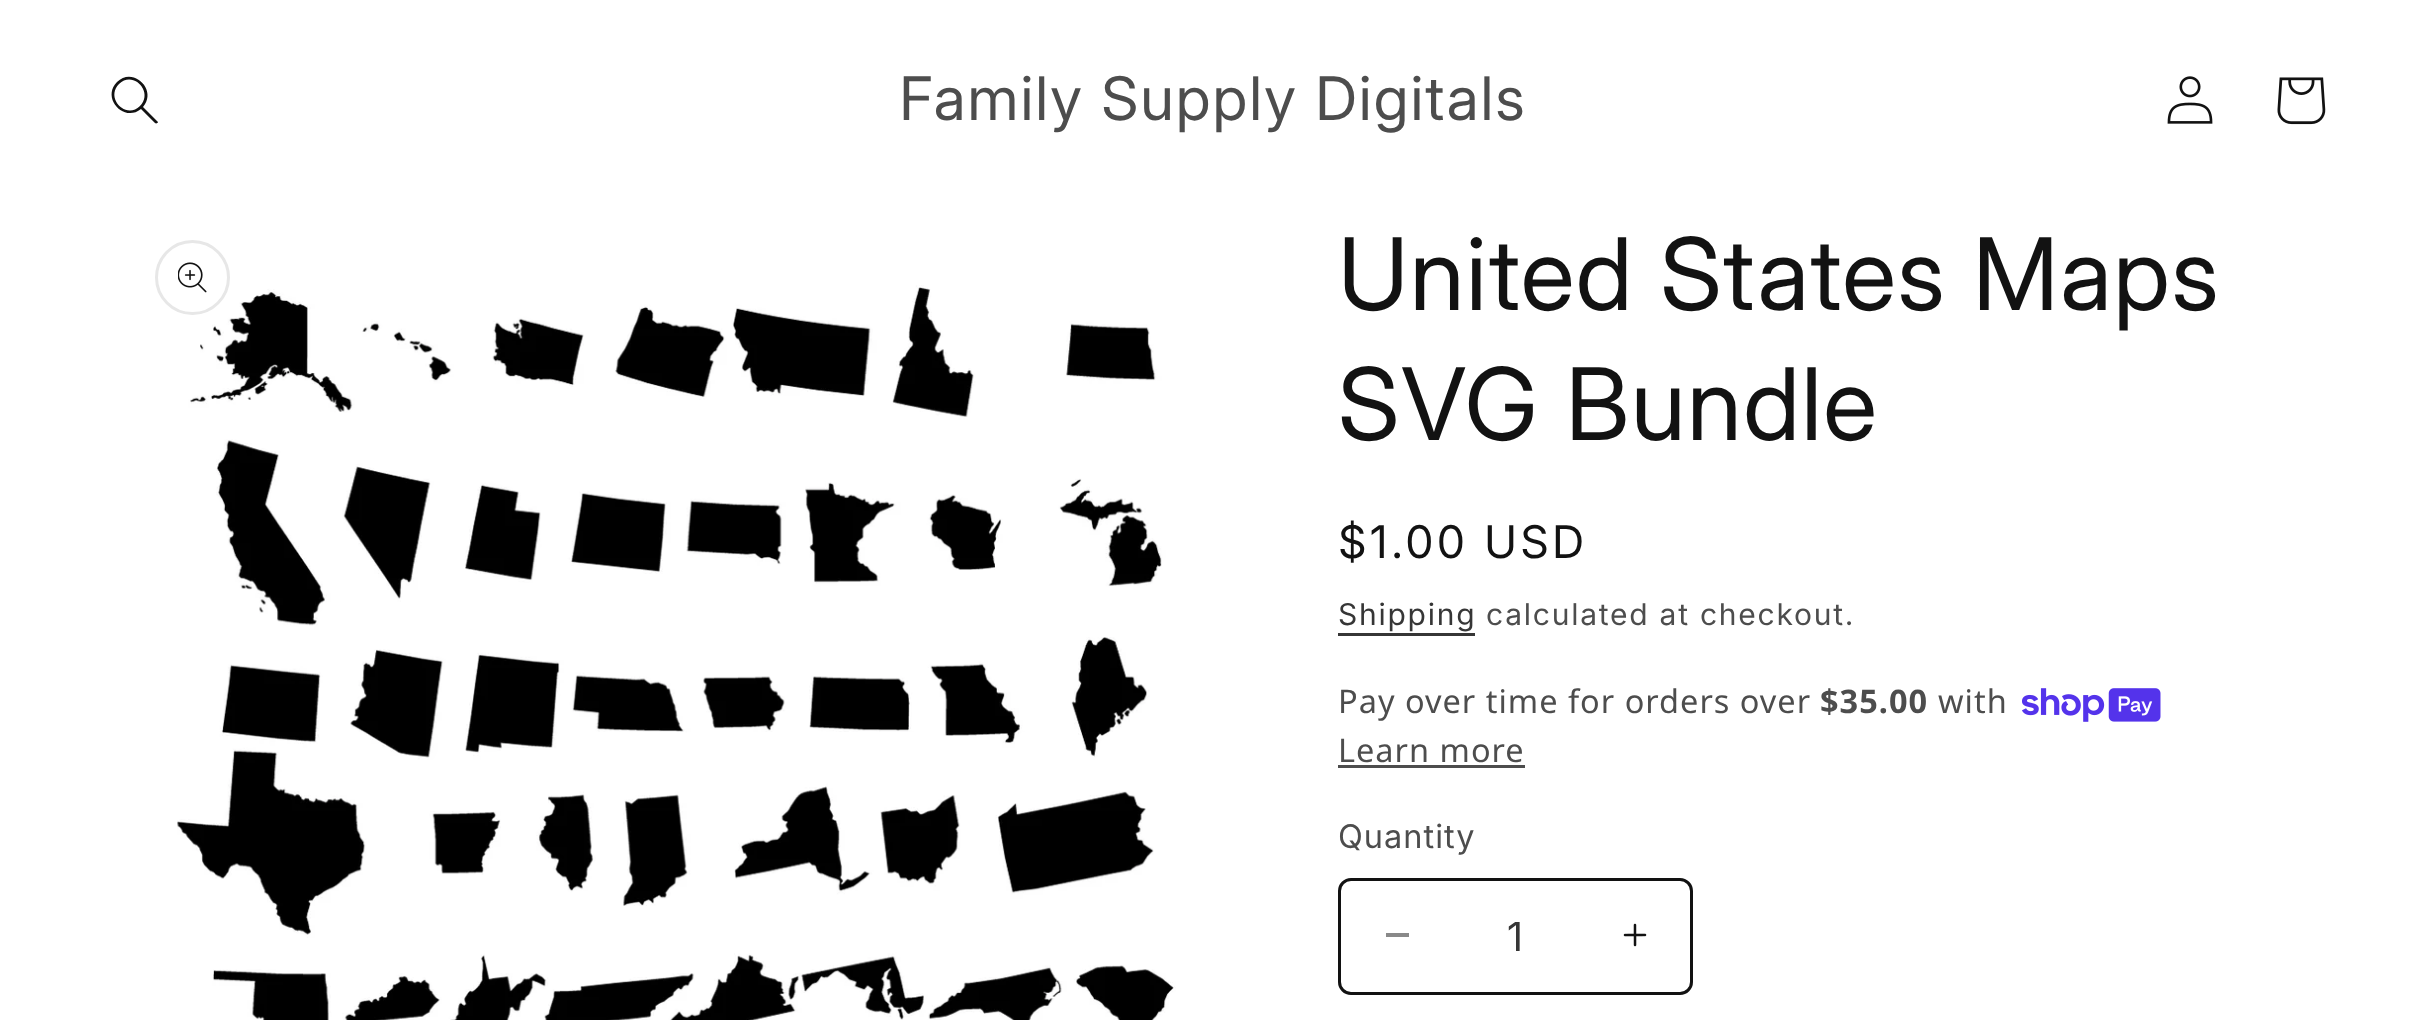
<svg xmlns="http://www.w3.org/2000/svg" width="2425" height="1020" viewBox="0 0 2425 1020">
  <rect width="100%" height="100%" fill="rgb(255,255,255)"/>
  <path d="M140 106C126 120 105 98 119 84C133 70 154 92 140 106M141 109C124 123 101 98 117 82C133 66 158 90 143 107L158 122C158 123 156 124 155 123Z" fill="rgb(18,18,18)" fill-rule="evenodd"/>
  <text x="899" y="120" font-family="'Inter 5'" font-size="60" letter-spacing="1.5" fill="rgb(77,77,77)">Family Supply Digitals</text>
  <image x="2167" y="76" width="46" height="48" href="pic1.png"/>
  <image x="2277" y="77" width="49" height="48" href="pic2.png"/>
  <image x="177" y="285" width="999" height="735" href="pic4.png"/>
  <circle cx="192.5" cy="277.5" r="36" fill="none" stroke="rgb(231,231,231)" stroke-width="3"/>
  <image x="178" y="262" width="29" height="31" href="pic3.png"/>
  <g font-family="Inter" font-size="100" letter-spacing="1.5" fill="rgb(18,18,18)">
    <text>
      <tspan x="1338" y="310">United States Maps</tspan>
      <tspan x="1338" y="440">SVG Bundle</tspan>
    </text>
  </g>
  <text x="1338" y="558" font-family="'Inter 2'" font-size="45" letter-spacing="3.25" fill="rgb(18,18,18)">$1.00 USD</text>
  <text x="1338" y="625" font-family="'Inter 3'" font-size="30" letter-spacing="1.75" fill="rgb(54,54,54)">Shipping</text>
  <rect x="1338" y="633" width="137" height="3" fill="rgb(54,54,54)"/>
  <text x="1486" y="625" font-family="'Inter 3'" font-size="30" letter-spacing="1.75" fill="rgb(77,77,77)">calculated at checkout.</text>
  <text x="1338" y="713" font-family="Noto Sans" font-size="32.5" letter-spacing="1" fill="rgb(77,77,77)">Pay over time for orders over</text>
  <text x="1820" y="713" font-family="Noto Sans" font-size="32.5" font-weight="bold" letter-spacing="1" fill="rgb(77,77,77)">$35.00</text>
  <text x="1938" y="713" font-family="Noto Sans" font-size="32.5" letter-spacing="1" fill="rgb(77,77,77)">with</text>
  <image x="2022" y="688" width="139" height="34" href="pic5.png"/>
  <text x="1338" y="762" font-family="Noto Sans" font-size="32.5" letter-spacing="1" fill="rgb(77,77,77)">Learn more</text>
  <rect x="1338" y="765" width="187" height="3" fill="rgb(77,77,77)"/>
  <text x="1338" y="848" font-family="'Inter 3'" font-size="32.5" letter-spacing="1" fill="rgb(77,77,77)">Quantity</text>
  <rect x="1386" y="933" width="23" height="4" fill="rgb(137,137,137)"/>
  <image x="1623" y="923" width="24" height="24" href="pic6.png"/>
  <rect x="1339.5" y="879.5" width="352" height="114" rx="11.5" fill="none" stroke="rgb(18,18,18)" stroke-width="3"/>
  <text x="1507" y="951" font-family="'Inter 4'" font-size="40" fill="rgb(54,54,54)">1</text>
</svg>
